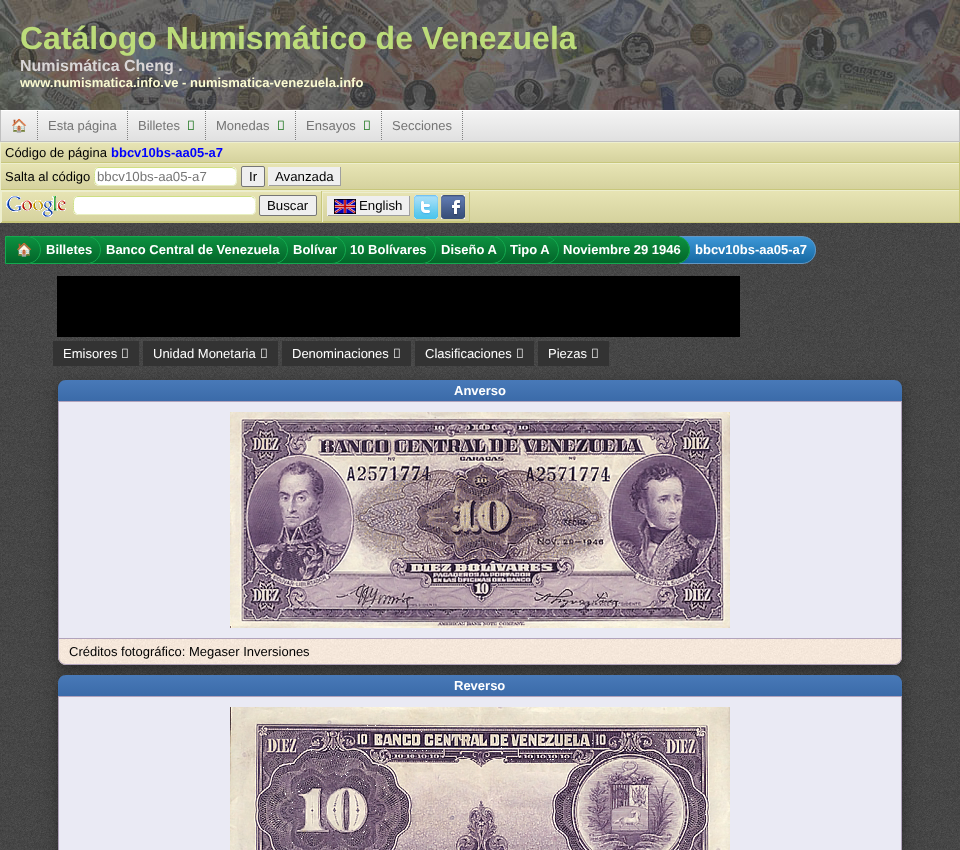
<svg xmlns="http://www.w3.org/2000/svg" width="960" height="850" viewBox="0 0 960 850">
  <defs>
    <linearGradient id="g1" gradientUnits="userSpaceOnUse" x1="480" y1="141" x2="480" y2="111"><stop offset="0" stop-color="rgb(224,224,224)"/><stop offset="1" stop-color="rgb(244,244,244)"/></linearGradient>
    <linearGradient id="g2" gradientUnits="userSpaceOnUse" x1="480" y1="162" x2="480" y2="143"><stop offset="0" stop-color="rgb(213,210,158)"/><stop offset="1" stop-color="rgb(231,228,180)"/></linearGradient>
    <linearGradient id="g3" gradientUnits="userSpaceOnUse" x1="480" y1="189" x2="480" y2="164"><stop offset="0" stop-color="rgb(213,210,158)"/><stop offset="1" stop-color="rgb(231,228,180)"/></linearGradient>
    <linearGradient id="g4" gradientUnits="userSpaceOnUse" x1="480" y1="222" x2="480" y2="191"><stop offset="0" stop-color="rgb(213,210,158)"/><stop offset="1" stop-color="rgb(231,228,180)"/></linearGradient>
    <clipPath id="clip1"><path d="M679 236H802C809.5 236 816 242.5 816 250C816 257.5 809.5 264 802 264H679Z"/></clipPath>
    <linearGradient id="g5" gradientUnits="userSpaceOnUse" x1="748" y1="263" x2="748" y2="237"><stop offset="0" stop-color="rgb(22,104,162)"/><stop offset="1" stop-color="rgb(61,151,215)"/></linearGradient>
    <clipPath id="clip2"><path d="M547 236H676C683.5 236 690 242.5 690 250C690 257.5 683.5 264 676 264H547Z"/></clipPath>
    <linearGradient id="g6" gradientUnits="userSpaceOnUse" x1="619" y1="263" x2="619" y2="237"><stop offset="0" stop-color="rgb(3,101,41)"/><stop offset="1" stop-color="rgb(12,145,64)"/></linearGradient>
    <clipPath id="clip3"><path d="M494 236H545C552.5 236 559 242.5 559 250C559 257.5 552.5 264 545 264H494Z"/></clipPath>
    <linearGradient id="g7" gradientUnits="userSpaceOnUse" x1="527" y1="263" x2="527" y2="237"><stop offset="0" stop-color="rgb(3,101,41)"/><stop offset="1" stop-color="rgb(12,145,64)"/></linearGradient>
    <clipPath id="clip4"><path d="M425 236H492C499.5 236 506 242.5 506 250C506 257.5 499.5 264 492 264H425Z"/></clipPath>
    <linearGradient id="g8" gradientUnits="userSpaceOnUse" x1="466" y1="263" x2="466" y2="237"><stop offset="0" stop-color="rgb(3,101,41)"/><stop offset="1" stop-color="rgb(12,145,64)"/></linearGradient>
    <clipPath id="clip5"><path d="M334 236H422C429.5 236 436 242.5 436 250C436 257.5 429.5 264 422 264H334Z"/></clipPath>
    <linearGradient id="g9" gradientUnits="userSpaceOnUse" x1="385" y1="263" x2="385" y2="237"><stop offset="0" stop-color="rgb(3,101,41)"/><stop offset="1" stop-color="rgb(12,145,64)"/></linearGradient>
    <clipPath id="clip6"><path d="M277 236H332C339.5 236 346 242.5 346 250C346 257.5 339.5 264 332 264H277Z"/></clipPath>
    <linearGradient id="g10" gradientUnits="userSpaceOnUse" x1="312" y1="263" x2="312" y2="237"><stop offset="0" stop-color="rgb(3,101,41)"/><stop offset="1" stop-color="rgb(12,145,64)"/></linearGradient>
    <clipPath id="clip7"><path d="M90 236H274C281.5 236 288 242.5 288 250C288 257.5 281.5 264 274 264H90Z"/></clipPath>
    <linearGradient id="g11" gradientUnits="userSpaceOnUse" x1="189" y1="263" x2="189" y2="237"><stop offset="0" stop-color="rgb(3,101,41)"/><stop offset="1" stop-color="rgb(12,145,64)"/></linearGradient>
    <clipPath id="clip8"><path d="M30 236H87C94.5 236 101 242.5 101 250C101 257.5 94.5 264 87 264H30Z"/></clipPath>
    <linearGradient id="g12" gradientUnits="userSpaceOnUse" x1="66" y1="263" x2="66" y2="237"><stop offset="0" stop-color="rgb(3,101,41)"/><stop offset="1" stop-color="rgb(12,145,64)"/></linearGradient>
    <clipPath id="clip9"><path d="M5 236H27C34.5 236 41 242.5 41 250C41 257.5 34.5 264 27 264H5Z"/></clipPath>
    <linearGradient id="g13" gradientUnits="userSpaceOnUse" x1="23" y1="263" x2="23" y2="237"><stop offset="0" stop-color="rgb(3,101,41)"/><stop offset="1" stop-color="rgb(12,145,64)"/></linearGradient>
    <linearGradient id="g14" gradientUnits="userSpaceOnUse" x1="480" y1="401" x2="480" y2="380"><stop offset="0" stop-color="rgb(59,107,169)"/><stop offset="1" stop-color="rgb(72,121,184)"/></linearGradient>
    <linearGradient id="g15" gradientUnits="userSpaceOnUse" x1="480" y1="696" x2="480" y2="675"><stop offset="0" stop-color="rgb(59,107,169)"/><stop offset="1" stop-color="rgb(72,121,184)"/></linearGradient>
  </defs>
  <rect width="100%" height="100%" fill="rgb(255,255,255)"/>
  <image x="0" y="223" width="960" height="627" href="pic1.png"/>
  <image x="0" y="0" width="960" height="110" href="pic2.png"/>
  <text x="20" y="49" font-family="Liberation Sans" font-size="32" font-weight="bold" fill="rgb(188,220,122)">Catálogo Numismático de Venezuela</text>
  <text x="20" y="71" font-family="Liberation Sans" font-size="16" font-weight="bold" fill="rgb(217,214,214)">Numismática Cheng .</text>
  <text x="20" y="87" font-family="Liberation Sans" font-size="13" font-weight="bold" fill="rgb(250,250,210)">www.numismatica.info.ve - numismatica-venezuela.info</text>
  <rect x="1" y="111" width="958" height="30" fill="url(#g1)"/>
  <rect x="959" y="110" width="1" height="32" fill="rgb(192,192,192)"/>
  <rect x="0" y="141" width="960" height="1" fill="rgb(192,192,192)"/>
  <rect x="0" y="110" width="1" height="32" fill="rgb(192,192,192)"/>
  <path d="M37.5 111V141" fill="none" stroke="rgb(128,128,128)" stroke-dasharray="1 1"/>
  <text x="11" y="130" font-family="Noto Color Emoji" font-size="13" fill="rgb(117,117,117)">🏠</text>
  <path d="M127.5 111V141" fill="none" stroke="rgb(128,128,128)" stroke-dasharray="1 1"/>
  <text x="48" y="130" font-family="Liberation Sans" font-size="13" fill="rgb(117,117,117)">Esta página</text>
  <path d="M205.5 111V141" fill="none" stroke="rgb(128,128,128)" stroke-dasharray="1 1"/>
  <text x="138" y="130" font-family="Liberation Sans" font-size="13" fill="rgb(117,117,117)">Billetes</text>
  <image x="188" y="120" width="6" height="10" href="pic3.png"/>
  <path d="M295.5 111V141" fill="none" stroke="rgb(128,128,128)" stroke-dasharray="1 1"/>
  <text x="216" y="130" font-family="Liberation Sans" font-size="13" fill="rgb(117,117,117)">Monedas</text>
  <image x="278" y="120" width="6" height="10" href="pic3.png"/>
  <path d="M381.5 111V141" fill="none" stroke="rgb(128,128,128)" stroke-dasharray="1 1"/>
  <text x="306" y="130" font-family="Liberation Sans" font-size="13" fill="rgb(117,117,117)">Ensayos</text>
  <image x="364" y="120" width="6" height="10" href="pic3.png"/>
  <path d="M462.5 111V141" fill="none" stroke="rgb(128,128,128)" stroke-dasharray="1 1"/>
  <text x="392" y="130" font-family="Liberation Sans" font-size="13" fill="rgb(117,117,117)">Secciones</text>
  <rect x="1" y="143" width="958" height="19" fill="url(#g2)"/>
  <rect x="0" y="142" width="960" height="1" fill="rgb(237,238,206)"/>
  <rect x="959" y="142" width="1" height="21" fill="rgb(200,199,123)"/>
  <rect x="0" y="162" width="960" height="1" fill="rgb(200,199,123)"/>
  <rect x="0" y="142" width="1" height="21" fill="rgb(237,238,206)"/>
  <text x="5" y="157" font-family="Liberation Sans" font-size="13" fill="rgb(0,0,0)">Código de página</text>
  <text x="111" y="157" font-family="Liberation Sans" font-size="13" font-weight="bold" fill="rgb(0,0,255)">bbcv10bs-aa05-a7</text>
  <rect x="1" y="164" width="958" height="25" fill="url(#g3)"/>
  <rect x="0" y="163" width="960" height="1" fill="rgb(237,238,206)"/>
  <rect x="959" y="163" width="1" height="27" fill="rgb(200,199,123)"/>
  <rect x="0" y="189" width="960" height="1" fill="rgb(200,199,123)"/>
  <rect x="0" y="163" width="1" height="27" fill="rgb(237,238,206)"/>
  <text x="5" y="181" font-family="Liberation Sans" font-size="13" fill="rgb(0,0,0)">Salta al código</text>
  <rect x="94" y="167" width="143" height="19" rx="5" fill="rgb(255,255,255)"/>
  <path d="M235 169C237 171 236.5 174 236.5 176.5C236.5 180 237 184.5 233 185.5H99L96 184" fill="none" stroke="rgb(231,239,192)"/>
  <path d="M96 184C94 182 94.5 179 94.5 176.5C94.5 173 94 168.5 98 167.5H232L235 169" fill="none" stroke="rgb(206,223,132)"/>
  <text x="97" y="181" font-family="Liberation Sans" font-size="13.25" fill="rgb(117,117,117)">bbcv10bs-aa05-a7</text>
  <rect x="241.5" y="166.5" width="23" height="20" rx="1.5" fill="rgb(239,239,239)" stroke="rgb(118,118,118)"/>
  <text x="249" y="181" font-family="Liberation Sans" font-size="13.25" fill="rgb(0,0,0)">Ir</text>
  <rect x="269" y="167" width="71" height="18" fill="rgb(239,239,239)"/>
  <rect x="340" y="167" width="1" height="19" fill="rgb(159,159,159)"/>
  <rect x="268" y="185" width="73" height="1" fill="rgb(159,159,159)"/>
  <rect x="268" y="167" width="1" height="19" fill="rgb(239,239,239)"/>
  <text x="275" y="181" font-family="Liberation Sans" font-size="13.25" fill="rgb(0,0,0)">Avanzada</text>
  <rect x="2" y="191" width="957" height="31" fill="url(#g4)"/>
  <rect x="0" y="190" width="960" height="1" fill="rgb(237,238,206)"/>
  <rect x="959" y="190" width="1" height="33" fill="rgb(200,199,123)"/>
  <rect x="0" y="222" width="960" height="1" fill="rgb(200,199,123)"/>
  <rect x="0" y="190" width="1" height="33" fill="rgb(237,238,206)"/>
  <rect x="1" y="191" width="321" height="1" fill="rgb(237,238,206)"/>
  <rect x="321" y="191" width="1" height="31" fill="rgb(200,199,123)"/>
  <rect x="1" y="221" width="321" height="1" fill="rgb(200,199,123)"/>
  <rect x="1" y="191" width="1" height="31" fill="rgb(237,238,206)"/>
  <image x="6" y="196" width="60" height="21" href="pic4.png"/>
  <rect x="73" y="196" width="183" height="19" rx="5" fill="rgb(255,255,255)"/>
  <path d="M254 198C256 200 255.5 203 255.5 205.5C255.5 209 256 214.5 251 214.5H77.5L75 213" fill="none" stroke="rgb(231,239,192)"/>
  <path d="M75 213C73 211 73.5 208 73.5 205.5C73.5 202 73 196.5 78 196.5H251.5L254 198" fill="none" stroke="rgb(206,223,132)"/>
  <rect x="259.5" y="195.5" width="57" height="20" rx="1.5" fill="rgb(239,239,239)" stroke="rgb(118,118,118)"/>
  <text x="267" y="210" font-family="Liberation Sans" font-size="13.25" fill="rgb(0,0,0)">Buscar</text>
  <rect x="322" y="192" width="148" height="1" fill="rgb(237,238,206)"/>
  <rect x="469" y="192" width="1" height="30" fill="rgb(200,199,123)"/>
  <rect x="322" y="221" width="148" height="1" fill="rgb(200,199,123)"/>
  <rect x="322" y="192" width="1" height="30" fill="rgb(237,238,206)"/>
  <rect x="328" y="196" width="81" height="19" fill="rgb(239,239,239)"/>
  <rect x="409" y="196" width="1" height="20" fill="rgb(159,159,159)"/>
  <rect x="327" y="215" width="83" height="1" fill="rgb(159,159,159)"/>
  <rect x="327" y="196" width="1" height="20" fill="rgb(239,239,239)"/>
  <image x="334" y="199" width="22" height="15" href="pic5.png"/>
  <text x="359" y="210" font-family="Liberation Sans" font-size="13.25" fill="rgb(0,0,0)">English</text>
  <image x="414" y="195" width="24" height="24" href="pic6.png"/>
  <image x="441" y="195" width="24" height="24" href="pic7.png"/>
  <g clip-path="url(#clip1)">
    <rect x="681" y="237" width="135" height="26" fill="url(#g5)"/>
  </g>
  <path d="M679.5 236.5H802C809.5 236.5 815.5 242.5 815.5 250C815.5 257.5 809.5 263.5 802 263.5H679.5Z" fill="none" stroke="rgb(99,151,196)"/>
  <g clip-path="url(#clip2)">
    <rect x="550" y="237" width="140" height="26" fill="url(#g6)"/>
  </g>
  <path d="M547.5 236.5H676C683.5 236.5 689.5 242.5 689.5 250C689.5 257.5 683.5 263.5 676 263.5H547.5Z" fill="none" stroke="rgb(20,169,79)"/>
  <g clip-path="url(#clip3)">
    <rect x="497" y="237" width="62" height="26" fill="url(#g7)"/>
  </g>
  <path d="M494.5 236.5H545C552.5 236.5 558.5 242.5 558.5 250C558.5 257.5 552.5 263.5 545 263.5H494.5Z" fill="none" stroke="rgb(20,169,79)"/>
  <g clip-path="url(#clip4)">
    <rect x="427" y="237" width="79" height="26" fill="url(#g8)"/>
  </g>
  <path d="M425.5 236.5H492C499.5 236.5 505.5 242.5 505.5 250C505.5 257.5 499.5 263.5 492 263.5H425.5Z" fill="none" stroke="rgb(20,169,79)"/>
  <g clip-path="url(#clip5)">
    <rect x="337" y="237" width="99" height="26" fill="url(#g9)"/>
  </g>
  <path d="M334.5 236.5H422C429.5 236.5 435.5 242.5 435.5 250C435.5 257.5 429.5 263.5 422 263.5H334.5Z" fill="none" stroke="rgb(20,169,79)"/>
  <g clip-path="url(#clip6)">
    <rect x="279" y="237" width="67" height="26" fill="url(#g10)"/>
  </g>
  <path d="M277.5 236.5H332C339.5 236.5 345.5 242.5 345.5 250C345.5 257.5 339.5 263.5 332 263.5H277.5Z" fill="none" stroke="rgb(20,169,79)"/>
  <g clip-path="url(#clip7)">
    <rect x="92" y="237" width="196" height="26" fill="url(#g11)"/>
  </g>
  <path d="M90.5 236.5H274C281.5 236.5 287.5 242.5 287.5 250C287.5 257.5 281.5 263.5 274 263.5H90.5Z" fill="none" stroke="rgb(20,169,79)"/>
  <g clip-path="url(#clip8)">
    <rect x="32" y="237" width="69" height="26" fill="url(#g12)"/>
  </g>
  <path d="M30.5 236.5H87C94.5 236.5 100.5 242.5 100.5 250C100.5 257.5 94.5 263.5 87 263.5H30.5Z" fill="none" stroke="rgb(20,169,79)"/>
  <g clip-path="url(#clip9)">
    <rect x="6" y="237" width="35" height="26" fill="url(#g13)"/>
  </g>
  <path d="M5.5 236.5H27C34.5 236.5 40.5 242.5 40.5 250C40.5 257.5 34.5 263.5 27 263.5H5.5Z" fill="none" stroke="rgb(20,169,79)"/>
  <text x="16" y="254" font-family="Noto Color Emoji" font-size="13" font-weight="bold" fill="rgb(255,255,255)">🏠</text>
  <g font-family="Liberation Sans" font-size="13" font-weight="bold" fill="rgb(255,255,255)">
    <text x="46" y="254">Billetes</text>
    <text x="106" y="254">Banco Central de Venezuela</text>
    <text x="293" y="254">Bolívar</text>
    <text x="350" y="254">10 Bolívares</text>
    <text x="441" y="254">Diseño A</text>
    <text x="510" y="254">Tipo A</text>
    <text x="563" y="254">Noviembre 29 1946</text>
    <text x="695" y="254">bbcv10bs-aa05-a7</text>
  </g>
  <rect x="57" y="276" width="683" height="61" fill="rgb(0,0,0)"/>
  <rect x="58" y="386" width="844" height="285" rx="8" fill="rgba(0,0,0,0.19)" filter="blur(10px)"/>
  <rect x="53" y="341" width="86" height="25" fill="rgb(51,51,51)"/>
  <text x="63" y="358" font-family="Liberation Sans" font-size="13" fill="rgb(255,255,255)">Emisores</text>
  <image x="122" y="348" width="6" height="10" href="pic8.png"/>
  <rect x="143" y="341" width="135" height="25" fill="rgb(51,51,51)"/>
  <text x="153" y="358" font-family="Liberation Sans" font-size="13" fill="rgb(255,255,255)">Unidad Monetaria</text>
  <image x="261" y="348" width="6" height="10" href="pic8.png"/>
  <rect x="282" y="341" width="129" height="25" fill="rgb(51,51,51)"/>
  <text x="292" y="358" font-family="Liberation Sans" font-size="13" fill="rgb(255,255,255)">Denominaciones</text>
  <image x="394" y="348" width="6" height="10" href="pic8.png"/>
  <rect x="415" y="341" width="119" height="25" fill="rgb(51,51,51)"/>
  <text x="425" y="358" font-family="Liberation Sans" font-size="13" fill="rgb(255,255,255)">Clasificaciones</text>
  <image x="517" y="348" width="6" height="10" href="pic8.png"/>
  <rect x="538" y="341" width="71" height="25" fill="rgb(51,51,51)"/>
  <text x="548" y="358" font-family="Liberation Sans" font-size="13" fill="rgb(255,255,255)">Piezas</text>
  <image x="592" y="348" width="6" height="10" href="pic8.png"/>
  <rect x="58" y="384" width="844" height="285" rx="8" fill="rgba(0,0,0,0.2)" filter="blur(4px)"/>
  <path d="M66 380H894C898.5 380 902 383.5 902 388V401H58V388C58 383.5 61.5 380 66 380Z" fill="url(#g14)"/>
  <text x="454" y="395" font-family="Liberation Sans" font-size="13" font-weight="bold" fill="rgb(255,255,255)">Anverso</text>
  <rect x="58.5" y="401.5" width="843" height="237" fill="rgb(234,234,244)" stroke="rgb(177,163,188)"/>
  <image x="230" y="412" width="500" height="216" href="pic9.png"/>
  <image x="58" y="639" width="844" height="26" href="pic10.png"/>
  <path d="M58 639H902V657C902 661 898 665 894 665H66C62 665 58 661 58 657ZM59 639H901V657C901 661 898 664 894 664H66C62 664 59 661 59 657Z" fill="rgb(177,163,188)" fill-rule="evenodd"/>
  <rect x="58" y="681" width="844" height="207" rx="8" fill="rgba(0,0,0,0.19)" filter="blur(10px)"/>
  <text x="69" y="656" font-family="Liberation Sans" font-size="13" fill="rgb(0,0,0)">Créditos fotográfico: Megaser Inversiones</text>
  <rect x="58" y="679" width="844" height="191" rx="8" fill="rgba(0,0,0,0.2)" filter="blur(4px)"/>
  <path d="M66 675H894C898.5 675 902 678.5 902 683V696H58V683C58 678.5 61.5 675 66 675Z" fill="url(#g15)"/>
  <text x="454" y="690" font-family="Liberation Sans" font-size="13" font-weight="bold" fill="rgb(255,255,255)">Reverso</text>
  <rect x="58.5" y="696.5" width="843" height="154" fill="rgb(234,234,244)" stroke="rgb(177,163,188)"/>
  <image x="230" y="707" width="500" height="143" href="pic11.png"/>
</svg>
